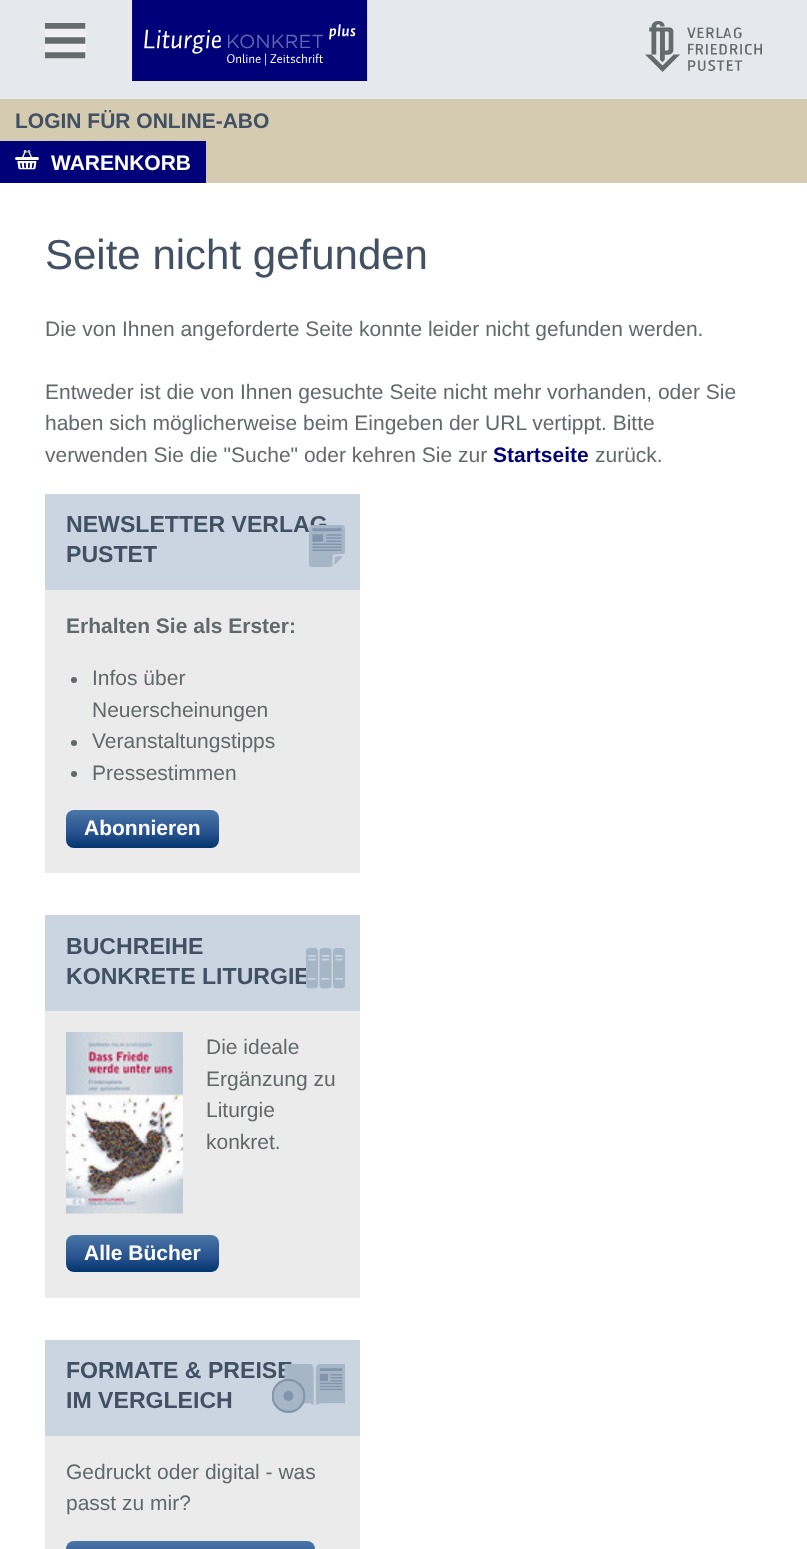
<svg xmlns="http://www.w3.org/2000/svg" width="807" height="1549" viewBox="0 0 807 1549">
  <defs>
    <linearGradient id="g1" gradientUnits="userSpaceOnUse" x1="143" y1="810" x2="143" y2="848"><stop offset="0" stop-color="rgb(74,118,167)"/><stop offset="0.6" stop-color="rgb(39,82,143)"/><stop offset="1" stop-color="rgb(2,52,108)"/></linearGradient>
    <linearGradient id="g2" gradientUnits="userSpaceOnUse" x1="143" y1="1235" x2="143" y2="1272"><stop offset="0" stop-color="rgb(74,118,167)"/><stop offset="0.6" stop-color="rgb(39,82,143)"/><stop offset="1" stop-color="rgb(2,52,108)"/></linearGradient>
    <linearGradient id="g3" gradientUnits="userSpaceOnUse" x1="191" y1="1541" x2="191" y2="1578"><stop offset="0" stop-color="rgb(74,118,167)"/><stop offset="0.6" stop-color="rgb(39,82,143)"/><stop offset="1" stop-color="rgb(2,52,108)"/></linearGradient>
  </defs>
  <rect width="100%" height="100%" fill="rgb(255,255,255)"/>
  <rect x="0" y="0" width="807" height="99" fill="rgb(229,233,238)"/>
  <rect x="45" y="23" width="41" height="36" fill="rgb(239,239,239)"/>
  <image x="45" y="23" width="41" height="36" href="pic1.png"/>
  <image x="132" y="0" width="236" height="81" href="pic2.png"/>
  <image x="645" y="21" width="117" height="51" href="pic3.png"/>
  <rect x="0" y="99" width="807" height="84" fill="rgb(212,203,176)"/>
  <text x="15" y="128" font-family="Liberation Sans" font-size="21" font-weight="bold" fill="rgb(65,80,98)">LOGIN FÜR ONLINE-ABO</text>
  <rect x="0" y="141" width="206" height="42" fill="rgb(0,0,121)"/>
  <image x="15" y="150" width="24" height="20" href="pic4.png"/>
  <text x="51" y="170" font-family="Liberation Sans" font-size="21" font-weight="bold" fill="rgb(255,255,255)">WARENKORB</text>
  <text x="45" y="269" font-family="Liberation Sans" font-size="42" fill="rgb(65,80,98)">Seite nicht gefunden</text>
  <g font-family="Liberation Sans" font-size="21" fill="rgb(98,105,106)">
    <text x="45" y="336">Die von Ihnen angeforderte Seite konnte leider nicht gefunden werden.</text>
    <text>
      <tspan x="45" y="399">Entweder ist die von Ihnen gesuchte Seite nicht mehr vorhanden, oder Sie</tspan>
      <tspan x="45" y="430">haben sich möglicherweise beim Eingeben der URL vertippt. Bitte</tspan>
      <tspan x="45" y="462">verwenden Sie die "Suche" oder kehren Sie zur</tspan>
    </text>
  </g>
  <text x="493" y="462" font-family="Liberation Sans" font-size="21" font-weight="bold" fill="rgb(0,0,121)">Startseite</text>
  <text x="595" y="462" font-family="Liberation Sans" font-size="21" fill="rgb(98,105,106)">zurück.</text>
  <rect x="45" y="590" width="315" height="283" fill="rgb(235,235,235)"/>
  <rect x="45" y="494" width="315" height="96" fill="rgb(203,213,225)"/>
  <g font-family="Liberation Sans" font-size="23.1" font-weight="bold" fill="rgb(65,80,98)">
    <text>
      <tspan x="66" y="532">NEWSLETTER VERLAG</tspan>
      <tspan x="66" y="562">PUSTET</tspan>
    </text>
  </g>
  <image x="309" y="525" width="36" height="42" href="pic5.png"/>
  <text x="66" y="633" font-family="Liberation Sans" font-size="21" font-weight="bold" fill="rgb(98,105,106)">Erhalten Sie als Erster:</text>
  <circle cx="74" cy="680" r="3" fill="rgb(98,105,106)"/>
  <g font-family="Liberation Sans" font-size="21" fill="rgb(98,105,106)">
    <text>
      <tspan x="92" y="685">Infos über</tspan>
      <tspan x="92" y="717">Neuerscheinungen</tspan>
    </text>
  </g>
  <circle cx="74" cy="743" r="3" fill="rgb(98,105,106)"/>
  <text x="92" y="748" font-family="Liberation Sans" font-size="21" fill="rgb(98,105,106)">Veranstaltungstipps</text>
  <circle cx="74" cy="774" r="3" fill="rgb(98,105,106)"/>
  <text x="92" y="780" font-family="Liberation Sans" font-size="21" fill="rgb(98,105,106)">Pressestimmen</text>
  <rect x="66" y="810" width="153" height="38" rx="8" fill="url(#g1)"/>
  <text x="84" y="835" font-family="Liberation Sans" font-size="21" font-weight="bold" fill="rgb(255,255,255)">Abonnieren</text>
  <rect x="45" y="1011" width="315" height="287" fill="rgb(235,235,235)"/>
  <rect x="45" y="915" width="315" height="96" fill="rgb(203,213,225)"/>
  <g font-family="Liberation Sans" font-size="23.1" font-weight="bold" fill="rgb(65,80,98)">
    <text>
      <tspan x="66" y="954">BUCHREIHE</tspan>
      <tspan x="66" y="984">KONKRETE LITURGIE</tspan>
    </text>
  </g>
  <image x="306" y="948" width="39" height="41" href="pic6.png"/>
  <image x="66" y="1032" width="117" height="182" href="pic7.png"/>
  <g font-family="Liberation Sans" font-size="21" fill="rgb(98,105,106)">
    <text>
      <tspan x="206" y="1054">Die ideale</tspan>
      <tspan x="206" y="1086">Ergänzung zu</tspan>
      <tspan x="206" y="1117">Liturgie</tspan>
      <tspan x="206" y="1149">konkret.</tspan>
    </text>
  </g>
  <rect x="66" y="1235" width="153" height="37" rx="8" fill="url(#g2)"/>
  <text x="84" y="1260" font-family="Liberation Sans" font-size="21" font-weight="bold" fill="rgb(255,255,255)">Alle Bücher</text>
  <rect x="45" y="1436" width="315" height="113" fill="rgb(235,235,235)"/>
  <rect x="45" y="1340" width="315" height="96" fill="rgb(203,213,225)"/>
  <text x="66" y="1378" font-family="Liberation Sans" font-size="23.1" font-weight="bold" fill="rgb(65,80,98)">FORMATE &amp; PREISE</text>
  <image x="272" y="1364" width="73" height="49" href="pic8.png"/>
  <text x="66" y="1408" font-family="Liberation Sans" font-size="23.1" font-weight="bold" fill="rgb(65,80,98)">IM VERGLEICH</text>
  <g font-family="Liberation Sans" font-size="21" fill="rgb(98,105,106)">
    <text>
      <tspan x="66" y="1479">Gedruckt oder digital - was</tspan>
      <tspan x="66" y="1510">passt zu mir?</tspan>
    </text>
  </g>
  <rect x="66" y="1541" width="249" height="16" rx="8" fill="url(#g3)"/>
</svg>
